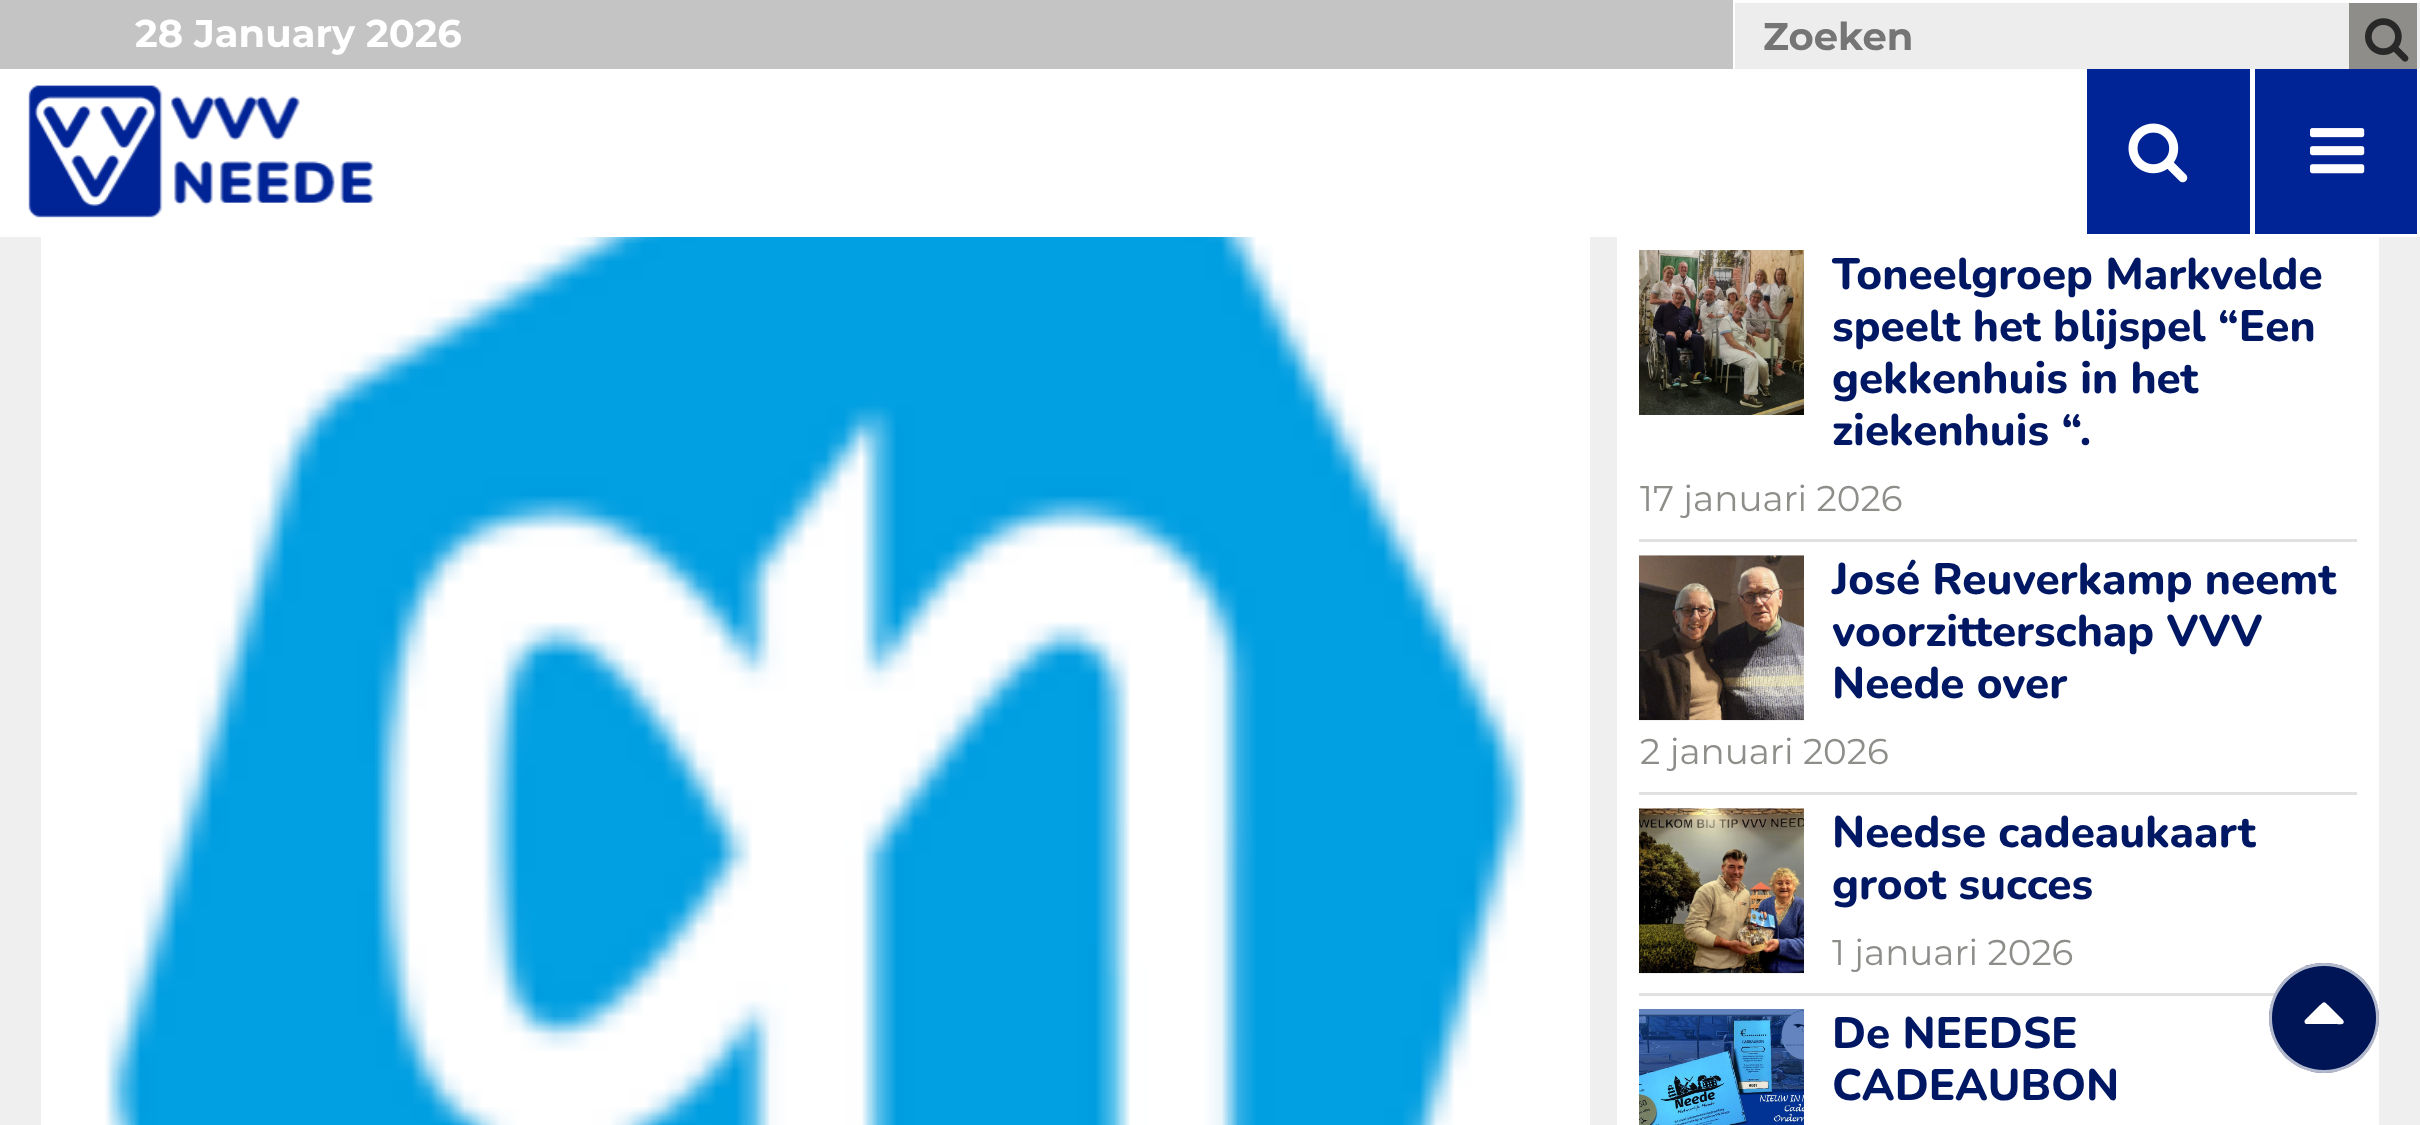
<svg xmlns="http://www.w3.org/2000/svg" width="2420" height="1125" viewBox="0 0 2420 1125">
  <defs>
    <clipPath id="clip1"><rect x="0" y="0" width="2420" height="69"/></clipPath>
  </defs>
  <rect width="100%" height="100%" fill="rgb(239,239,239)"/>
  <rect x="0" y="69" width="2420" height="168" fill="rgb(255,255,255)"/>
  <rect x="0" y="0" width="1733" height="69" fill="rgb(196,196,196)"/>
  <text x="135" y="47" font-family="Montserrat" font-size="38.5" font-weight="bold" fill="rgb(255,255,255)">28 January 2026</text>
  <g clip-path="url(#clip1)">
    <rect x="1734.5" y="1.5" width="684" height="71" fill="none" stroke="rgb(255,255,255)" stroke-width="3"/>
  </g>
  <rect x="1735" y="3" width="685" height="66" fill="rgb(237,237,237)"/>
  <text x="1763" y="50" font-family="Montserrat" font-size="38.5" font-weight="bold" fill="rgb(117,117,117)">Zoeken</text>
  <rect x="2349" y="3" width="68" height="66" fill="rgb(142,141,138)"/>
  <image x="2365" y="18" width="44" height="44" href="pic1.png"/>
  <image x="28" y="85" width="346" height="133" href="pic2.png"/>
  <rect x="2255" y="69" width="162" height="165" fill="rgb(0,36,150)"/>
  <rect x="2087" y="69" width="163" height="165" fill="rgb(0,36,150)"/>
  <image x="2128" y="123" width="60" height="60" href="pic3.png"/>
  <image x="2310" y="128" width="55" height="46" href="pic4.png"/>
  <rect x="41" y="237" width="1549" height="888" fill="rgb(255,255,255)"/>
  <image x="41" y="237" width="1549" height="888" href="pic5.png"/>
  <rect x="1617" y="237" width="762" height="888" fill="rgb(255,255,255)"/>
  <rect x="1639" y="539" width="718" height="3" fill="rgb(225,225,225)"/>
  <image x="1639" y="250" width="165" height="165" href="pic6.png"/>
  <g font-family="Nunito" font-size="44" font-weight="800" fill="rgb(0,24,100)">
    <text>
      <tspan x="1832" y="289">Toneelgroep Markvelde</tspan>
      <tspan x="1832" y="341">speelt het blijspel “Een</tspan>
      <tspan x="1832" y="393">gekkenhuis in het</tspan>
      <tspan x="1832" y="445">ziekenhuis “.</tspan>
    </text>
  </g>
  <text x="1640" y="511" font-family="Montserrat" font-size="35.75" fill="rgb(142,141,138)">17 januari 2026</text>
  <rect x="1639" y="792" width="718" height="3" fill="rgb(225,225,225)"/>
  <image x="1639" y="555" width="165" height="166" href="pic7.png"/>
  <g font-family="Nunito" font-size="44" font-weight="800" fill="rgb(0,24,100)">
    <text>
      <tspan x="1832" y="594">José Reuverkamp neemt</tspan>
      <tspan x="1832" y="646">voorzitterschap VVV</tspan>
      <tspan x="1832" y="698">Neede over</tspan>
    </text>
  </g>
  <text x="1640" y="764" font-family="Montserrat" font-size="35.75" fill="rgb(142,141,138)">2 januari 2026</text>
  <rect x="1639" y="993" width="636" height="3" fill="rgb(225,225,225)"/>
  <image x="1639" y="808" width="165" height="166" href="pic8.png"/>
  <g font-family="Nunito" font-size="44" font-weight="800" fill="rgb(0,24,100)">
    <text>
      <tspan x="1832" y="847">Needse cadeaukaart</tspan>
      <tspan x="1832" y="899">groot succes</tspan>
    </text>
  </g>
  <text x="1832" y="965" font-family="Montserrat" font-size="35.75" fill="rgb(142,141,138)">1 januari 2026</text>
  <image x="1639" y="1009" width="165" height="116" href="pic9.png"/>
  <g font-family="Nunito" font-size="44" font-weight="800" fill="rgb(0,24,100)">
    <text>
      <tspan x="1832" y="1048">De NEEDSE</tspan>
      <tspan x="1832" y="1100">CADEAUBON</tspan>
    </text>
  </g>
  <circle cx="2324" cy="1018" r="55" fill="rgb(0,21,85)"/>
  <circle cx="2324" cy="1018" r="53.5" fill="none" stroke="rgba(255,255,255,0.7)" stroke-width="3"/>
  <path d="M2343 1020L2343.5 1021C2345.5 1025.5 2336.5 1024 2335.5 1024H2306.5C2304.5 1024 2304 1021.5 2305 1020L2319.5 1005.5C2324.5 1001 2324 1001 2328.5 1005.5Z" fill="rgb(255,255,255)"/>
</svg>
